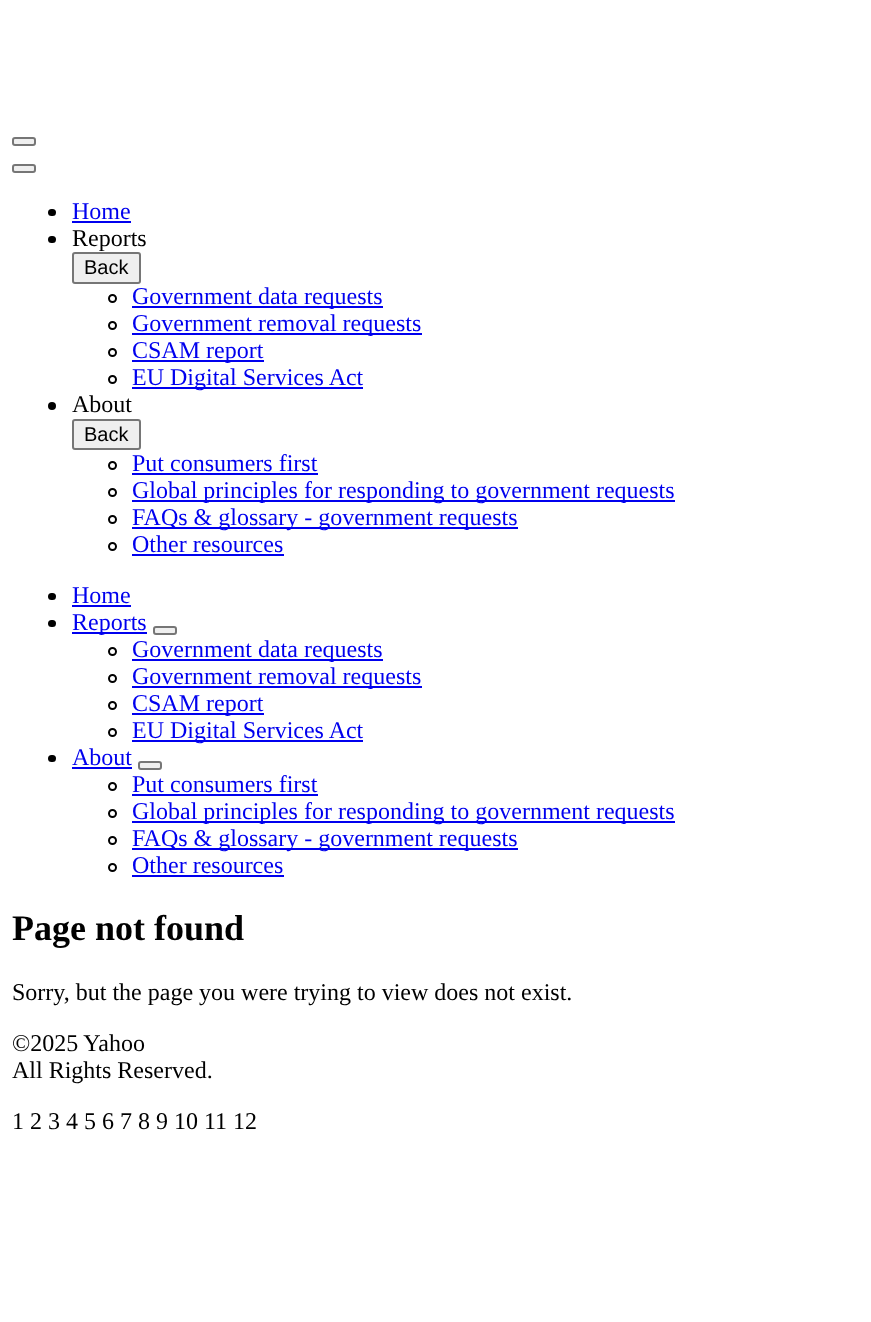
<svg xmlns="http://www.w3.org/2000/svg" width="871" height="1322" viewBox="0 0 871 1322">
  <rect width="100%" height="100%" fill="rgb(255,255,255)"/>
  <rect x="13" y="138" width="22" height="7" rx="2" fill="rgb(239,239,239)" stroke="rgb(118,118,118)" stroke-width="2"/>
  <rect x="13" y="165" width="22" height="7" rx="2" fill="rgb(239,239,239)" stroke="rgb(118,118,118)" stroke-width="2"/>
  <rect x="48" y="209" width="8" height="7" rx="3.5" fill="rgb(0,0,0)"/>
  <text x="72" y="219" font-family="Liberation Serif" font-size="24" fill="rgb(0,0,238)">Home</text>
  <rect x="72" y="221" width="59" height="2" fill="rgb(0,0,238)"/>
  <rect x="48" y="236" width="8" height="7" rx="3.5" fill="rgb(0,0,0)"/>
  <text x="72" y="246" font-family="Liberation Serif" font-size="24" fill="rgb(0,0,0)">Reports</text>
  <rect x="73" y="253" width="67" height="30" rx="2" fill="rgb(239,239,239)" stroke="rgb(118,118,118)" stroke-width="2"/>
  <text x="84" y="274" font-family="Liberation Sans" font-size="20" fill="rgb(0,0,0)">Back</text>
  <circle cx="112.5" cy="298.5" r="3.5" fill="none" stroke="rgb(0,0,0)" stroke-width="2"/>
  <rect x="132" y="306" width="251" height="2" fill="rgb(0,0,238)"/>
  <text x="132" y="304" font-family="Liberation Serif" font-size="24" fill="rgb(0,0,238)">Government data requests</text>
  <circle cx="112.5" cy="325.5" r="3.5" fill="none" stroke="rgb(0,0,0)" stroke-width="2"/>
  <rect x="132" y="333" width="290" height="2" fill="rgb(0,0,238)"/>
  <text x="132" y="331" font-family="Liberation Serif" font-size="24" fill="rgb(0,0,238)">Government removal requests</text>
  <circle cx="112.5" cy="352.5" r="3.5" fill="none" stroke="rgb(0,0,0)" stroke-width="2"/>
  <rect x="132" y="360" width="132" height="2" fill="rgb(0,0,238)"/>
  <text x="132" y="358" font-family="Liberation Serif" font-size="24" fill="rgb(0,0,238)">CSAM report</text>
  <circle cx="112.5" cy="379.5" r="3.5" fill="none" stroke="rgb(0,0,0)" stroke-width="2"/>
  <rect x="132" y="387" width="231" height="2" fill="rgb(0,0,238)"/>
  <text x="132" y="385" font-family="Liberation Serif" font-size="24" fill="rgb(0,0,238)">EU Digital Services Act</text>
  <circle cx="52" cy="406" r="4" fill="rgb(0,0,0)"/>
  <text x="72" y="412" font-family="Liberation Serif" font-size="24" fill="rgb(0,0,0)">About</text>
  <rect x="73" y="420" width="67" height="29" rx="2" fill="rgb(239,239,239)" stroke="rgb(118,118,118)" stroke-width="2"/>
  <text x="84" y="441" font-family="Liberation Sans" font-size="20" fill="rgb(0,0,0)">Back</text>
  <circle cx="112.5" cy="465.5" r="3.5" fill="none" stroke="rgb(0,0,0)" stroke-width="2"/>
  <text x="132" y="471" font-family="Liberation Serif" font-size="24" fill="rgb(0,0,238)">Put consumers first</text>
  <rect x="132" y="473" width="186" height="2" fill="rgb(0,0,238)"/>
  <circle cx="112.5" cy="492.5" r="3.5" fill="none" stroke="rgb(0,0,0)" stroke-width="2"/>
  <rect x="132" y="500" width="543" height="2" fill="rgb(0,0,238)"/>
  <text x="132" y="498" font-family="Liberation Serif" font-size="24" fill="rgb(0,0,238)">Global principles for responding to government requests</text>
  <circle cx="112.5" cy="519.5" r="3.5" fill="none" stroke="rgb(0,0,0)" stroke-width="2"/>
  <rect x="132" y="527" width="386" height="2" fill="rgb(0,0,238)"/>
  <text x="132" y="525" font-family="Liberation Serif" font-size="24" fill="rgb(0,0,238)">FAQs &amp; glossary - government requests</text>
  <circle cx="112.5" cy="546.5" r="3.5" fill="none" stroke="rgb(0,0,0)" stroke-width="2"/>
  <text x="132" y="552" font-family="Liberation Serif" font-size="24" fill="rgb(0,0,238)">Other resources</text>
  <rect x="132" y="554" width="152" height="2" fill="rgb(0,0,238)"/>
  <rect x="48" y="593" width="8" height="7" rx="3.5" fill="rgb(0,0,0)"/>
  <text x="72" y="603" font-family="Liberation Serif" font-size="24" fill="rgb(0,0,238)">Home</text>
  <rect x="72" y="605" width="59" height="2" fill="rgb(0,0,238)"/>
  <rect x="48" y="620" width="8" height="7" rx="3.5" fill="rgb(0,0,0)"/>
  <rect x="72" y="632" width="75" height="2" fill="rgb(0,0,238)"/>
  <text x="72" y="630" font-family="Liberation Serif" font-size="24" fill="rgb(0,0,238)">Reports</text>
  <rect x="154" y="627" width="22" height="7" rx="2" fill="rgb(239,239,239)" stroke="rgb(118,118,118)" stroke-width="2"/>
  <circle cx="112.5" cy="651.5" r="3.5" fill="none" stroke="rgb(0,0,0)" stroke-width="2"/>
  <rect x="132" y="659" width="251" height="2" fill="rgb(0,0,238)"/>
  <text x="132" y="657" font-family="Liberation Serif" font-size="24" fill="rgb(0,0,238)">Government data requests</text>
  <circle cx="112.5" cy="678.5" r="3.5" fill="none" stroke="rgb(0,0,0)" stroke-width="2"/>
  <rect x="132" y="686" width="290" height="2" fill="rgb(0,0,238)"/>
  <text x="132" y="684" font-family="Liberation Serif" font-size="24" fill="rgb(0,0,238)">Government removal requests</text>
  <circle cx="112.5" cy="705.5" r="3.5" fill="none" stroke="rgb(0,0,0)" stroke-width="2"/>
  <rect x="132" y="713" width="132" height="2" fill="rgb(0,0,238)"/>
  <text x="132" y="711" font-family="Liberation Serif" font-size="24" fill="rgb(0,0,238)">CSAM report</text>
  <circle cx="112.5" cy="732.5" r="3.5" fill="none" stroke="rgb(0,0,0)" stroke-width="2"/>
  <rect x="132" y="740" width="231" height="2" fill="rgb(0,0,238)"/>
  <text x="132" y="738" font-family="Liberation Serif" font-size="24" fill="rgb(0,0,238)">EU Digital Services Act</text>
  <rect x="48" y="755" width="8" height="7" rx="3.5" fill="rgb(0,0,0)"/>
  <text x="72" y="765" font-family="Liberation Serif" font-size="24" fill="rgb(0,0,238)">About</text>
  <rect x="72" y="767" width="60" height="2" fill="rgb(0,0,238)"/>
  <rect x="139" y="762" width="22" height="7" rx="2" fill="rgb(239,239,239)" stroke="rgb(118,118,118)" stroke-width="2"/>
  <circle cx="112.5" cy="786.5" r="3.5" fill="none" stroke="rgb(0,0,0)" stroke-width="2"/>
  <text x="132" y="792" font-family="Liberation Serif" font-size="24" fill="rgb(0,0,238)">Put consumers first</text>
  <rect x="132" y="794" width="186" height="2" fill="rgb(0,0,238)"/>
  <circle cx="112.5" cy="813.5" r="3.5" fill="none" stroke="rgb(0,0,0)" stroke-width="2"/>
  <rect x="132" y="821" width="543" height="2" fill="rgb(0,0,238)"/>
  <text x="132" y="819" font-family="Liberation Serif" font-size="24" fill="rgb(0,0,238)">Global principles for responding to government requests</text>
  <circle cx="112.5" cy="840.5" r="3.5" fill="none" stroke="rgb(0,0,0)" stroke-width="2"/>
  <rect x="132" y="848" width="386" height="2" fill="rgb(0,0,238)"/>
  <text x="132" y="846" font-family="Liberation Serif" font-size="24" fill="rgb(0,0,238)">FAQs &amp; glossary - government requests</text>
  <circle cx="112.5" cy="867.5" r="3.5" fill="none" stroke="rgb(0,0,0)" stroke-width="2"/>
  <text x="132" y="873" font-family="Liberation Serif" font-size="24" fill="rgb(0,0,238)">Other resources</text>
  <rect x="132" y="875" width="152" height="2" fill="rgb(0,0,238)"/>
  <text x="12" y="940" font-family="Liberation Serif" font-size="36" font-weight="bold" fill="rgb(0,0,0)">Page not found</text>
  <g font-family="Liberation Serif" font-size="24" fill="rgb(0,0,0)">
    <text x="12" y="1000">Sorry, but the page you were trying to view does not exist.</text>
    <text>
      <tspan x="12" y="1051">©2025 Yahoo</tspan>
      <tspan x="12" y="1078">All Rights Reserved.</tspan>
    </text>
    <text x="12" y="1129">1 2 3 4 5 6 7 8 9 10 11 12</text>
  </g>
</svg>
